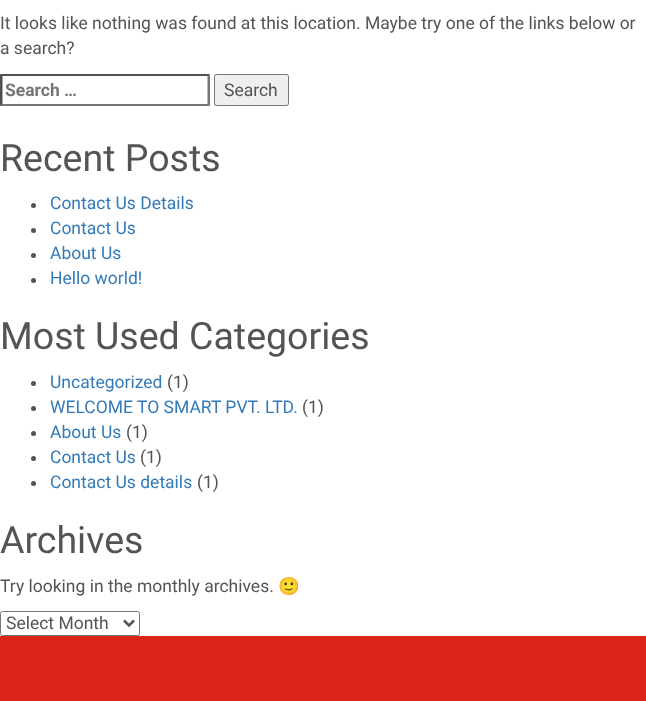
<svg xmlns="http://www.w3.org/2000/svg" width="646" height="701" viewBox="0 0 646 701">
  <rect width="100%" height="100%" fill="rgb(255,255,255)"/>
  <g font-family="Roboto" font-size="17.5" fill="rgb(84,84,84)">
    <text>
      <tspan x="0" y="29">It looks like nothing was found at this location. Maybe try one of the links below or</tspan>
      <tspan x="0" y="54">a search?</tspan>
    </text>
  </g>
  <path d="M0 74H210L208 76H2Z" fill="rgb(79,79,79)"/>
  <path d="M210 74V106L207.5 104V76Z" fill="rgb(118,118,118)"/>
  <path d="M210 106H0L2 104H208Z" fill="rgb(118,118,118)"/>
  <path d="M0 106V74L2.5 76V104Z" fill="rgb(79,79,79)"/>
  <text x="5" y="96" font-family="Roboto" font-size="17.5" font-weight="bold" fill="rgb(117,117,117)">Search …</text>
  <rect x="214.5" y="74.5" width="74" height="31" rx="2" fill="rgb(239,239,239)" stroke="rgb(118,118,118)"/>
  <text x="224" y="96" font-family="Roboto" font-size="17.5" fill="rgb(84,84,84)">Search</text>
  <text x="0" y="171" font-family="Roboto" font-size="37.5" fill="rgb(84,84,84)">Recent Posts</text>
  <circle cx="33.5" cy="205.5" r="2.5" fill="rgb(84,84,84)"/>
  <text x="50" y="209" font-family="Roboto" font-size="17.5" fill="rgb(51,122,183)">Contact Us Details</text>
  <circle cx="33.5" cy="230.5" r="2.5" fill="rgb(84,84,84)"/>
  <text x="50" y="234" font-family="Roboto" font-size="17.5" fill="rgb(51,122,183)">Contact Us</text>
  <circle cx="33.5" cy="255.5" r="2.5" fill="rgb(84,84,84)"/>
  <text x="50" y="259" font-family="Roboto" font-size="17.5" fill="rgb(51,122,183)">About Us</text>
  <circle cx="33.5" cy="280.5" r="2.5" fill="rgb(84,84,84)"/>
  <text x="50" y="284" font-family="Roboto" font-size="17.5" fill="rgb(51,122,183)">Hello world!</text>
  <text x="0" y="349" font-family="Roboto" font-size="37.5" fill="rgb(84,84,84)">Most Used Categories</text>
  <circle cx="33.5" cy="383.5" r="2.5" fill="rgb(84,84,84)"/>
  <text x="50" y="388" font-family="Roboto" font-size="17.5" fill="rgb(51,122,183)">Uncategorized</text>
  <text x="167" y="388" font-family="Roboto" font-size="17.5" fill="rgb(84,84,84)">(1)</text>
  <circle cx="33.5" cy="408.5" r="2.5" fill="rgb(84,84,84)"/>
  <text x="50" y="413" font-family="Roboto" font-size="17.5" fill="rgb(51,122,183)">WELCOME TO SMART PVT. LTD.</text>
  <text x="302" y="413" font-family="Roboto" font-size="17.5" fill="rgb(84,84,84)">(1)</text>
  <circle cx="33.5" cy="433.5" r="2.5" fill="rgb(84,84,84)"/>
  <text x="50" y="438" font-family="Roboto" font-size="17.5" fill="rgb(51,122,183)">About Us</text>
  <text x="126" y="438" font-family="Roboto" font-size="17.5" fill="rgb(84,84,84)">(1)</text>
  <circle cx="33.5" cy="458.5" r="2.5" fill="rgb(84,84,84)"/>
  <text x="50" y="463" font-family="Roboto" font-size="17.5" fill="rgb(51,122,183)">Contact Us</text>
  <text x="140" y="463" font-family="Roboto" font-size="17.5" fill="rgb(84,84,84)">(1)</text>
  <circle cx="33.5" cy="483.5" r="2.5" fill="rgb(84,84,84)"/>
  <text x="50" y="488" font-family="Roboto" font-size="17.5" fill="rgb(51,122,183)">Contact Us details</text>
  <text x="197" y="488" font-family="Roboto" font-size="17.5" fill="rgb(84,84,84)">(1)</text>
  <text x="0" y="553" font-family="Roboto" font-size="37.5" fill="rgb(84,84,84)">Archives</text>
  <text x="0" y="592" font-family="Roboto" font-size="17.5" fill="rgb(84,84,84)">Try looking in the monthly archives.</text>
  <text x="278" y="592" font-family="Noto Color Emoji" font-size="17.5" fill="rgb(84,84,84)">🙂</text>
  <rect x="0.5" y="611.5" width="139" height="24" rx="2" fill="none" stroke="rgb(118,118,118)"/>
  <path d="M124 620.5L129 625.5L134 620.5" fill="none" stroke="rgb(84,84,84)" stroke-width="2.5"/>
  <text x="6" y="629" font-family="Roboto" font-size="17.5" fill="rgb(84,84,84)">Select Month</text>
  <rect x="0" y="636" width="646" height="65" fill="rgb(219,36,25)"/>
</svg>
